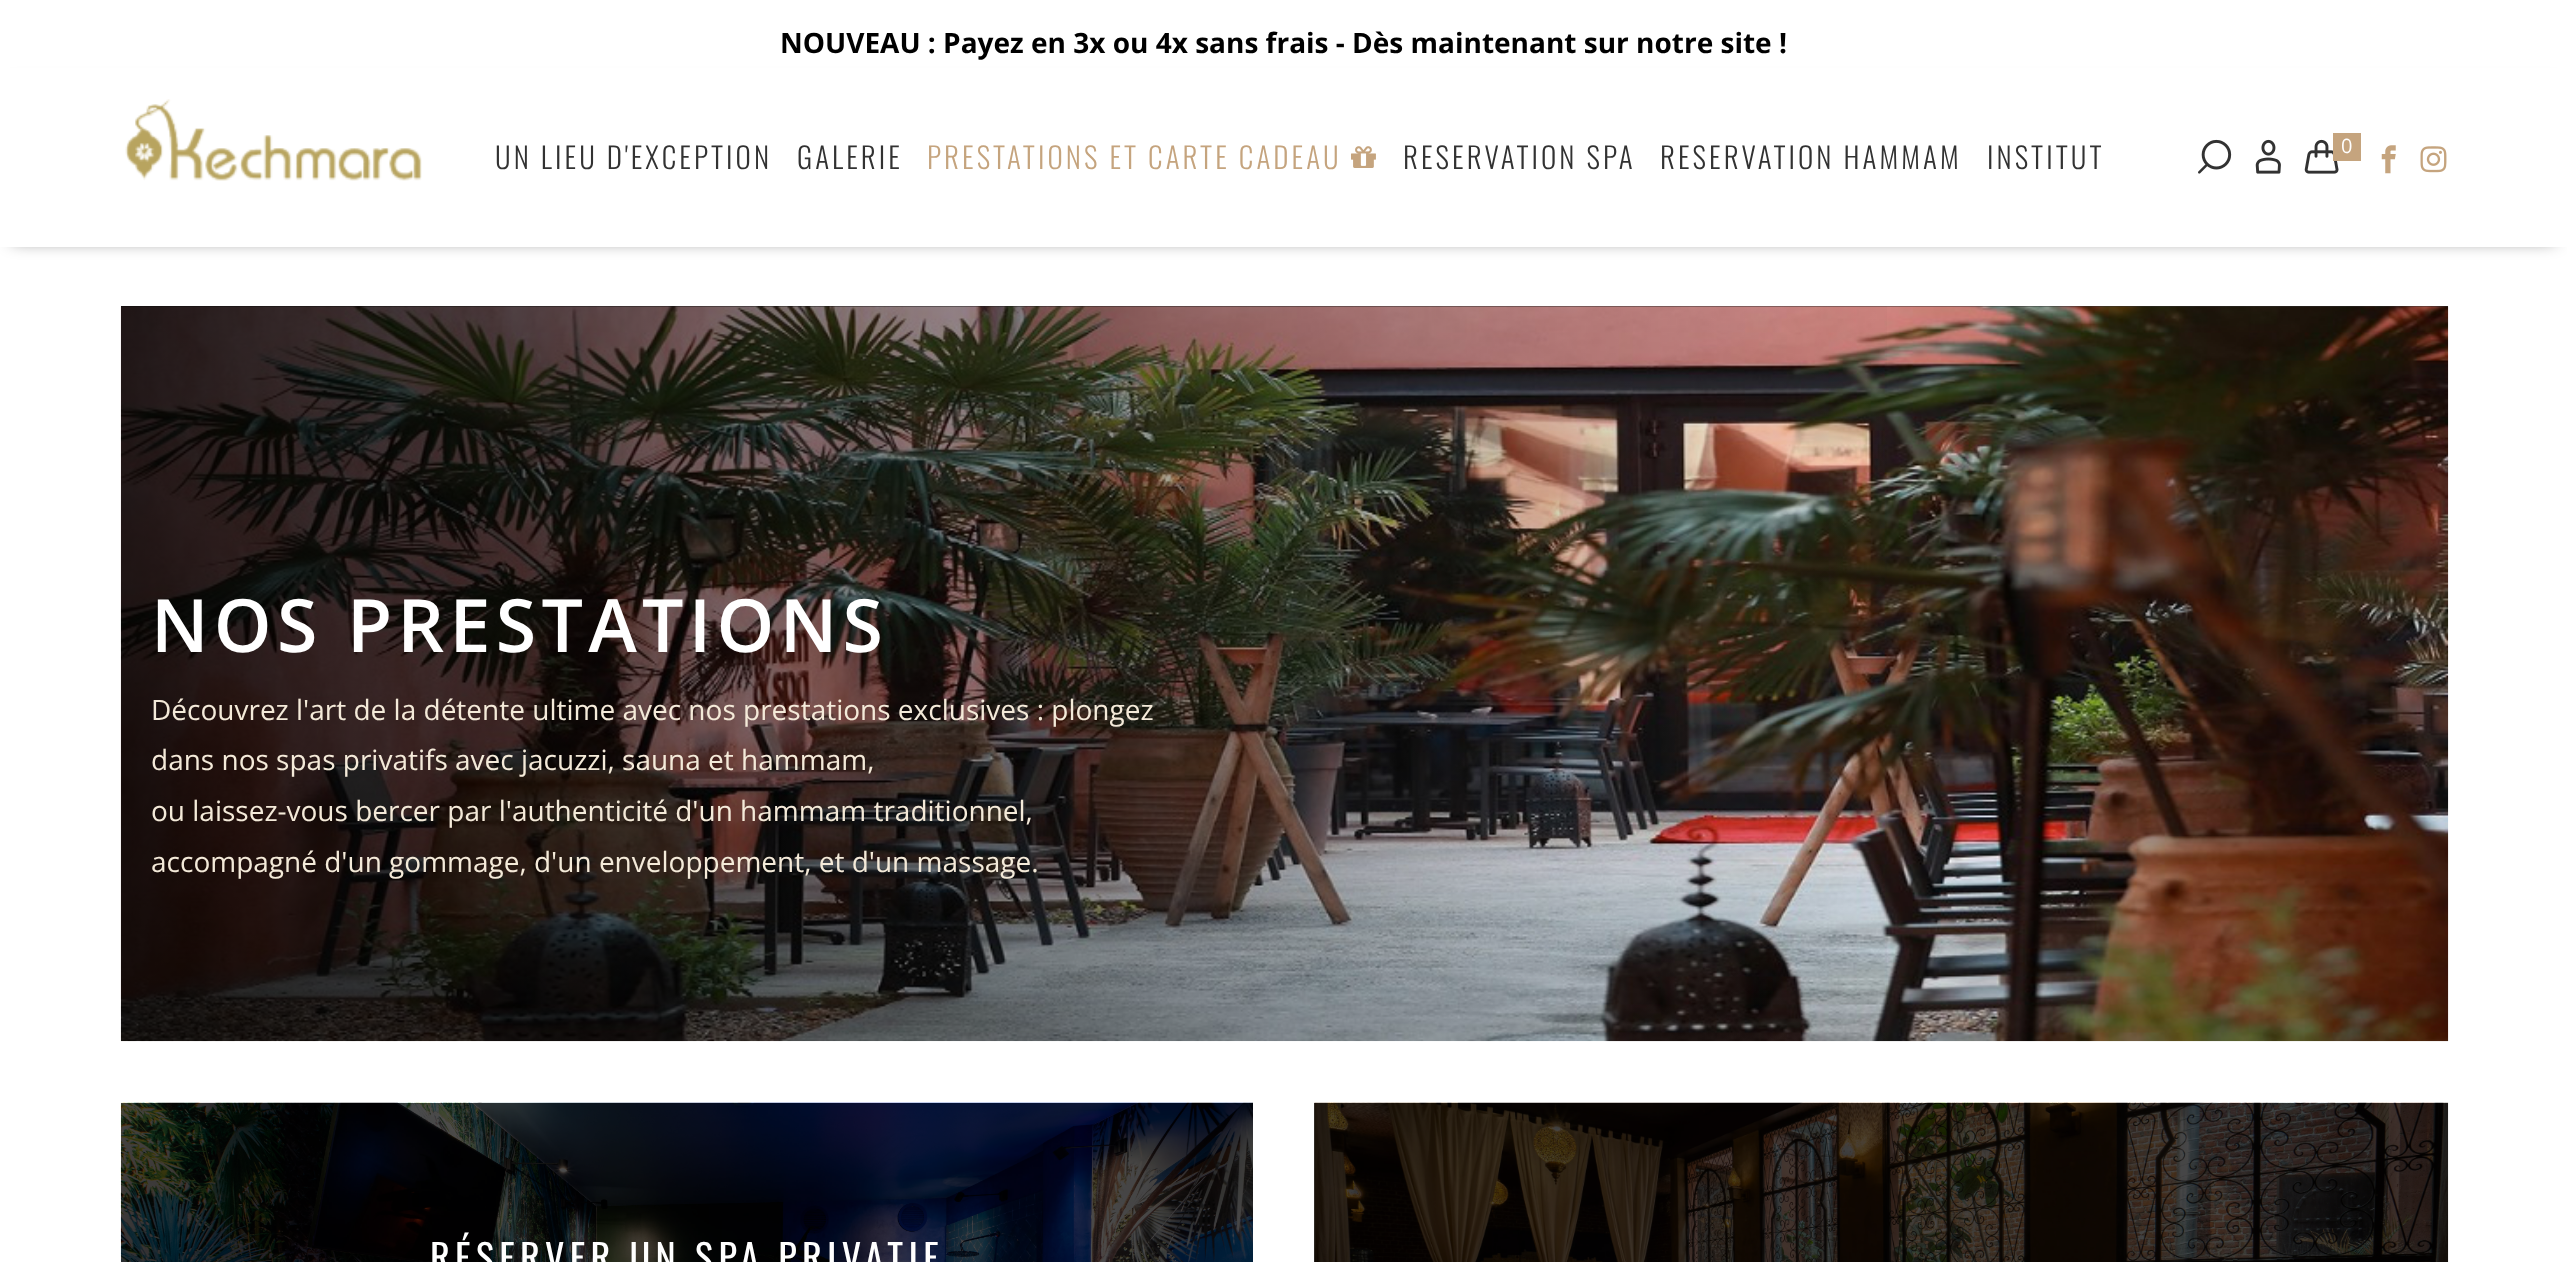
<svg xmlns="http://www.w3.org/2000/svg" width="2567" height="1262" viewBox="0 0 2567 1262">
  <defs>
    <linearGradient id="g1" gradientUnits="userSpaceOnUse" x1="2448" y1="674" x2="121" y2="674"><stop offset="0" stop-color="rgb(0,0,0)" stop-opacity="0"/><stop offset="0.22" stop-color="rgb(0,0,0)" stop-opacity="0"/><stop offset="1" stop-color="rgb(0,0,0)" stop-opacity="0.8"/></linearGradient>
  </defs>
  <rect width="100%" height="100%" fill="rgb(255,255,255)"/>
  <rect x="1314" y="1103" width="1" height="159" fill="rgb(77,77,77)"/>
  <text x="780" y="53" font-family="Open Sans" font-size="28" font-weight="bold" fill="rgb(0,0,0)">NOUVEAU : Payez en 3x ou 4x sans frais - Dès maintenant sur notre site !</text>
  <rect x="12" y="86" width="2543" height="154" fill="rgba(0,0,0,0.6)" filter="blur(8.5px)"/>
  <rect x="0" y="68" width="2567" height="179" fill="rgb(255,255,255)"/>
  <image x="125" y="99" width="297" height="82" href="pic1.png"/>
  <g font-family="Oswald" font-size="29.1" font-weight="300" letter-spacing="3.05" fill="rgb(50,50,50)">
    <text x="495" y="169">UN LIEU D'EXCEPTION</text>
    <text x="797" y="169">GALERIE</text>
  </g>
  <text x="927" y="169" font-family="Oswald" font-size="29.1" font-weight="300" letter-spacing="3.05" fill="rgb(197,164,126)">PRESTATIONS ET CARTE CADEAU</text>
  <image x="1351" y="146" width="25" height="22" href="pic2.png"/>
  <g font-family="Oswald" font-size="29.1" font-weight="300" letter-spacing="3.05" fill="rgb(50,50,50)">
    <text x="1403" y="169">RESERVATION SPA</text>
    <text x="1660" y="169">RESERVATION HAMMAM</text>
    <text x="1987" y="169">INSTITUT</text>
  </g>
  <image x="2198" y="139" width="34" height="35" href="pic3.png"/>
  <image x="2255" y="139" width="26" height="35" href="pic4.png"/>
  <image x="2304" y="139" width="35" height="35" href="pic5.png"/>
  <rect x="2333" y="133" width="28" height="28" fill="rgb(197,164,126)"/>
  <text x="2341" y="153" font-family="Open Sans" font-size="20" fill="rgb(255,255,255)">0</text>
  <image x="2381" y="145" width="15" height="29" href="pic6.png"/>
  <image x="2420" y="146" width="27" height="27" href="pic7.png"/>
  <rect x="121" y="306" width="2327" height="1" fill="rgb(50,50,50)"/>
  <image x="120" y="306" width="2329" height="736" href="pic8.png"/>
  <rect x="121" y="306" width="1766" height="735" fill="url(#g1)"/>
  <text x="151" y="652" font-family="Open Sans" font-size="73.5" font-weight="600" letter-spacing="5.25" fill="rgb(255,255,255)">NOS PRESTATIONS</text>
  <g font-family="Open Sans" font-size="28" fill="rgb(244,234,217)">
    <text>
      <tspan x="151" y="720">Découvrez l'art de la détente ultime avec nos prestations exclusives : plongez</tspan>
      <tspan x="151" y="770">dans nos spas privatifs avec jacuzzi, sauna et hammam,</tspan>
      <tspan x="151" y="821">ou laissez-vous bercer par l'authenticité d'un hammam traditionnel,</tspan>
      <tspan x="151" y="872">accompagné d'un gommage, d'un enveloppement, et d'un massage.</tspan>
    </text>
  </g>
  <image x="120" y="1102" width="1133" height="160" href="pic9.png"/>
  <text x="430" y="1273" font-family="Oswald" font-size="38.25" letter-spacing="5.25" fill="rgb(255,255,255)">RÉSERVER UN SPA PRIVATIF</text>
  <image x="1314" y="1102" width="1135" height="160" href="pic10.png"/>
</svg>
